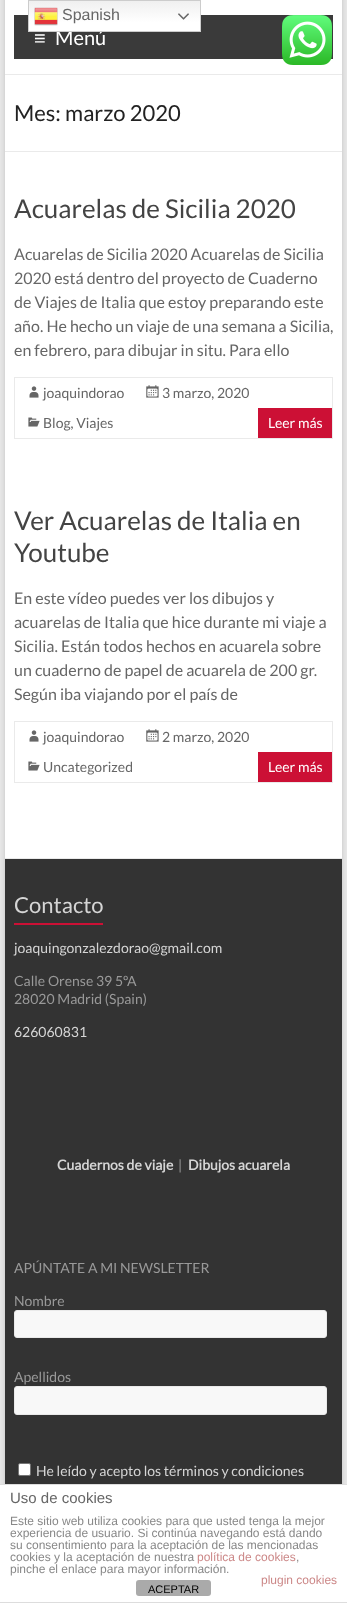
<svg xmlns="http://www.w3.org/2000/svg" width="347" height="1603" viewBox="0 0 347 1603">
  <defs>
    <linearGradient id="g1" gradientUnits="userSpaceOnUse" x1="115" y1="0" x2="115" y2="32"><stop offset="0" stop-color="rgb(239,239,239)"/><stop offset="0.7" stop-color="rgb(255,255,255)"/></linearGradient>
  </defs>
  <rect width="100%" height="100%" fill="rgb(234,234,234)"/>
  <rect x="5" y="-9" width="337" height="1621" fill="rgba(100,100,100,0.3)" filter="blur(3px)"/>
  <rect x="5" y="0" width="337" height="858" fill="rgb(255,255,255)"/>
  <rect x="14" y="15" width="319" height="44" fill="rgb(58,58,58)"/>
  <text x="55" y="45" font-family="Lato" font-size="20" fill="rgb(255,255,255)">Menú</text>
  <rect x="29" y="1" width="171" height="30" fill="url(#g1)"/>
  <rect x="28.5" y="0.5" width="172" height="31" fill="none" stroke="rgb(204,204,204)"/>
  <image x="34" y="7" width="24" height="19" href="pic1.png"/>
  <text x="62" y="20" font-family="Liberation Sans" font-size="16" fill="rgb(102,102,102)">Spanish</text>
  <image x="178" y="13" width="11" height="7" href="pic2.png"/>
  <image x="282" y="15" width="50" height="50" href="pic3.png"/>
  <rect x="5" y="74" width="337" height="1" fill="rgb(234,234,234)"/>
  <text x="34" y="45" font-family="Liberation Sans" font-size="20" fill="rgb(255,255,255)">≡</text>
  <rect x="5" y="151" width="337" height="1" fill="rgb(234,234,234)"/>
  <text x="14" y="121" font-family="Lato" font-size="22" fill="rgb(34,34,34)">Mes: marzo 2020</text>
  <text x="14" y="218" font-family="Lato" font-size="26" fill="rgb(68,68,68)">Acuarelas de Sicilia 2020</text>
  <g font-family="Lato" font-size="16" fill="rgb(102,102,102)">
    <text>
      <tspan x="14" y="260">Acuarelas de Sicilia 2020 Acuarelas de Sicilia</tspan>
      <tspan x="14" y="284">2020 está dentro del proyecto de Cuaderno</tspan>
      <tspan x="14" y="308">de Viajes de Italia que estoy preparando este</tspan>
      <tspan x="14" y="332">año. He hecho un viaje de una semana a Sicilia,</tspan>
      <tspan x="14" y="356">en febrero, para dibujar in situ. Para ello</tspan>
    </text>
  </g>
  <rect x="14.5" y="377.5" width="318" height="61" fill="none" stroke="rgb(234,234,234)"/>
  <image x="29" y="386" width="10" height="12" href="pic4.png"/>
  <text x="43" y="398" font-family="Lato" font-size="14" fill="rgb(102,102,102)">joaquindorao</text>
  <image x="146" y="385" width="13" height="13" href="pic5.png"/>
  <text x="162" y="398" font-family="Lato" font-size="14" fill="rgb(102,102,102)">3 marzo, 2020</text>
  <image x="28" y="417" width="12" height="10" href="pic6.png"/>
  <text x="43" y="428" font-family="Lato" font-size="14" fill="rgb(102,102,102)">Blog, Viajes</text>
  <rect x="258" y="408" width="74" height="30" fill="rgb(204,16,53)"/>
  <text x="268" y="428" font-family="Lato" font-size="14" fill="rgb(255,255,255)">Leer más</text>
  <g font-family="Lato" font-size="26" fill="rgb(68,68,68)">
    <text>
      <tspan x="14" y="530">Ver Acuarelas de Italia en</tspan>
      <tspan x="14" y="562">Youtube</tspan>
    </text>
  </g>
  <g font-family="Lato" font-size="16" fill="rgb(102,102,102)">
    <text>
      <tspan x="14" y="604">En este vídeo puedes ver los dibujos y</tspan>
      <tspan x="14" y="628">acuarelas de Italia que hice durante mi viaje a</tspan>
      <tspan x="14" y="652">Sicilia. Están todos hechos en acuarela sobre</tspan>
      <tspan x="14" y="676">un cuaderno de papel de acuarela de 200 gr.</tspan>
      <tspan x="14" y="700">Según iba viajando por el país de</tspan>
    </text>
  </g>
  <rect x="14.5" y="721.5" width="318" height="61" fill="none" stroke="rgb(234,234,234)"/>
  <image x="29" y="730" width="10" height="12" href="pic4.png"/>
  <text x="43" y="742" font-family="Lato" font-size="14" fill="rgb(102,102,102)">joaquindorao</text>
  <image x="146" y="729" width="13" height="13" href="pic5.png"/>
  <text x="162" y="742" font-family="Lato" font-size="14" fill="rgb(102,102,102)">2 marzo, 2020</text>
  <image x="28" y="761" width="12" height="10" href="pic6.png"/>
  <text x="43" y="772" font-family="Lato" font-size="14" fill="rgb(102,102,102)">Uncategorized</text>
  <rect x="258" y="752" width="74" height="30" fill="rgb(204,16,53)"/>
  <text x="268" y="772" font-family="Lato" font-size="14" fill="rgb(255,255,255)">Leer más</text>
  <rect x="5" y="859" width="337" height="625" fill="rgb(51,51,51)"/>
  <rect x="5" y="858" width="337" height="1" fill="rgb(234,234,234)"/>
  <text x="14" y="913" font-family="Lato" font-size="22" fill="rgb(213,213,213)">Contacto</text>
  <rect x="14" y="923" width="89" height="2" fill="rgb(204,16,53)"/>
  <text x="14" y="953" font-family="Lato" font-size="14" fill="rgb(213,213,213)">joaquingonzalezdorao@gmail.com</text>
  <g font-family="Lato" font-size="14" fill="rgb(153,153,153)">
    <text>
      <tspan x="14" y="986">Calle Orense 39 5ºA</tspan>
      <tspan x="14" y="1004">28020 Madrid (Spain)</tspan>
    </text>
  </g>
  <text x="14" y="1037" font-family="Lato" font-size="14" fill="rgb(213,213,213)">626060831</text>
  <text x="57" y="1170" font-family="Lato" font-size="14" font-weight="bold" fill="rgb(213,213,213)">Cuadernos de viaje</text>
  <text x="178" y="1170" font-family="Lato" font-size="14" fill="rgb(153,153,153)">|</text>
  <text x="188" y="1170" font-family="Lato" font-size="14" font-weight="bold" fill="rgb(213,213,213)">Dibujos acuarela</text>
  <g font-family="Lato" font-size="14" fill="rgb(153,153,153)">
    <text x="14" y="1273">APÚNTATE A MI NEWSLETTER</text>
    <text x="14" y="1306">Nombre</text>
  </g>
  <rect x="14.5" y="1310.5" width="312" height="27" rx="2.5" fill="rgb(248,248,248)" stroke="rgb(234,234,234)"/>
  <text x="14" y="1382" font-family="Lato" font-size="14" fill="rgb(153,153,153)">Apellidos</text>
  <rect x="14.5" y="1386.5" width="312" height="28" rx="2.5" fill="rgb(248,248,248)" stroke="rgb(234,234,234)"/>
  <rect x="18.5" y="1463.5" width="12" height="12" rx="1.5" fill="rgb(255,255,255)" stroke="rgb(118,118,118)"/>
  <text x="36" y="1476" font-family="Lato" font-size="14" fill="rgb(213,213,213)">He leído y acepto los términos y condiciones</text>
  <rect x="0" y="1485" width="347" height="117" fill="rgb(255,255,255)"/>
  <rect x="0" y="1484" width="347" height="1" fill="rgb(221,221,221)"/>
  <rect x="0" y="1602" width="347" height="1" fill="rgb(221,221,221)"/>
  <text x="10" y="1503" font-family="Liberation Sans" font-size="15" fill="rgb(102,102,102)">Uso de cookies</text>
  <g font-family="Liberation Sans" font-size="12" fill="rgb(136,136,136)">
    <text>
      <tspan x="10" y="1525">Este sitio web utiliza cookies para que usted tenga la mejor</tspan>
      <tspan x="10" y="1537">experiencia de usuario. Si continúa navegando está dando</tspan>
      <tspan x="10" y="1549">su consentimiento para la aceptación de las mencionadas</tspan>
      <tspan x="10" y="1561">cookies y la aceptación de nuestra</tspan>
    </text>
  </g>
  <text x="197" y="1561" font-family="Liberation Sans" font-size="12" fill="rgb(204,136,136)">política de cookies</text>
  <g font-family="Liberation Sans" font-size="12" fill="rgb(136,136,136)">
    <text x="296" y="1561">,</text>
    <text x="10" y="1573">pinche el enlace para mayor información.</text>
  </g>
  <text x="261" y="1584" font-family="Liberation Sans" font-size="12" fill="rgb(204,136,136)">plugin cookies</text>
  <rect x="136" y="1580" width="75" height="16" rx="3" fill="rgb(170,170,170)"/>
  <text x="148" y="1593" font-family="Liberation Sans" font-size="11" fill="rgb(0,0,0)">ACEPTAR</text>
</svg>
